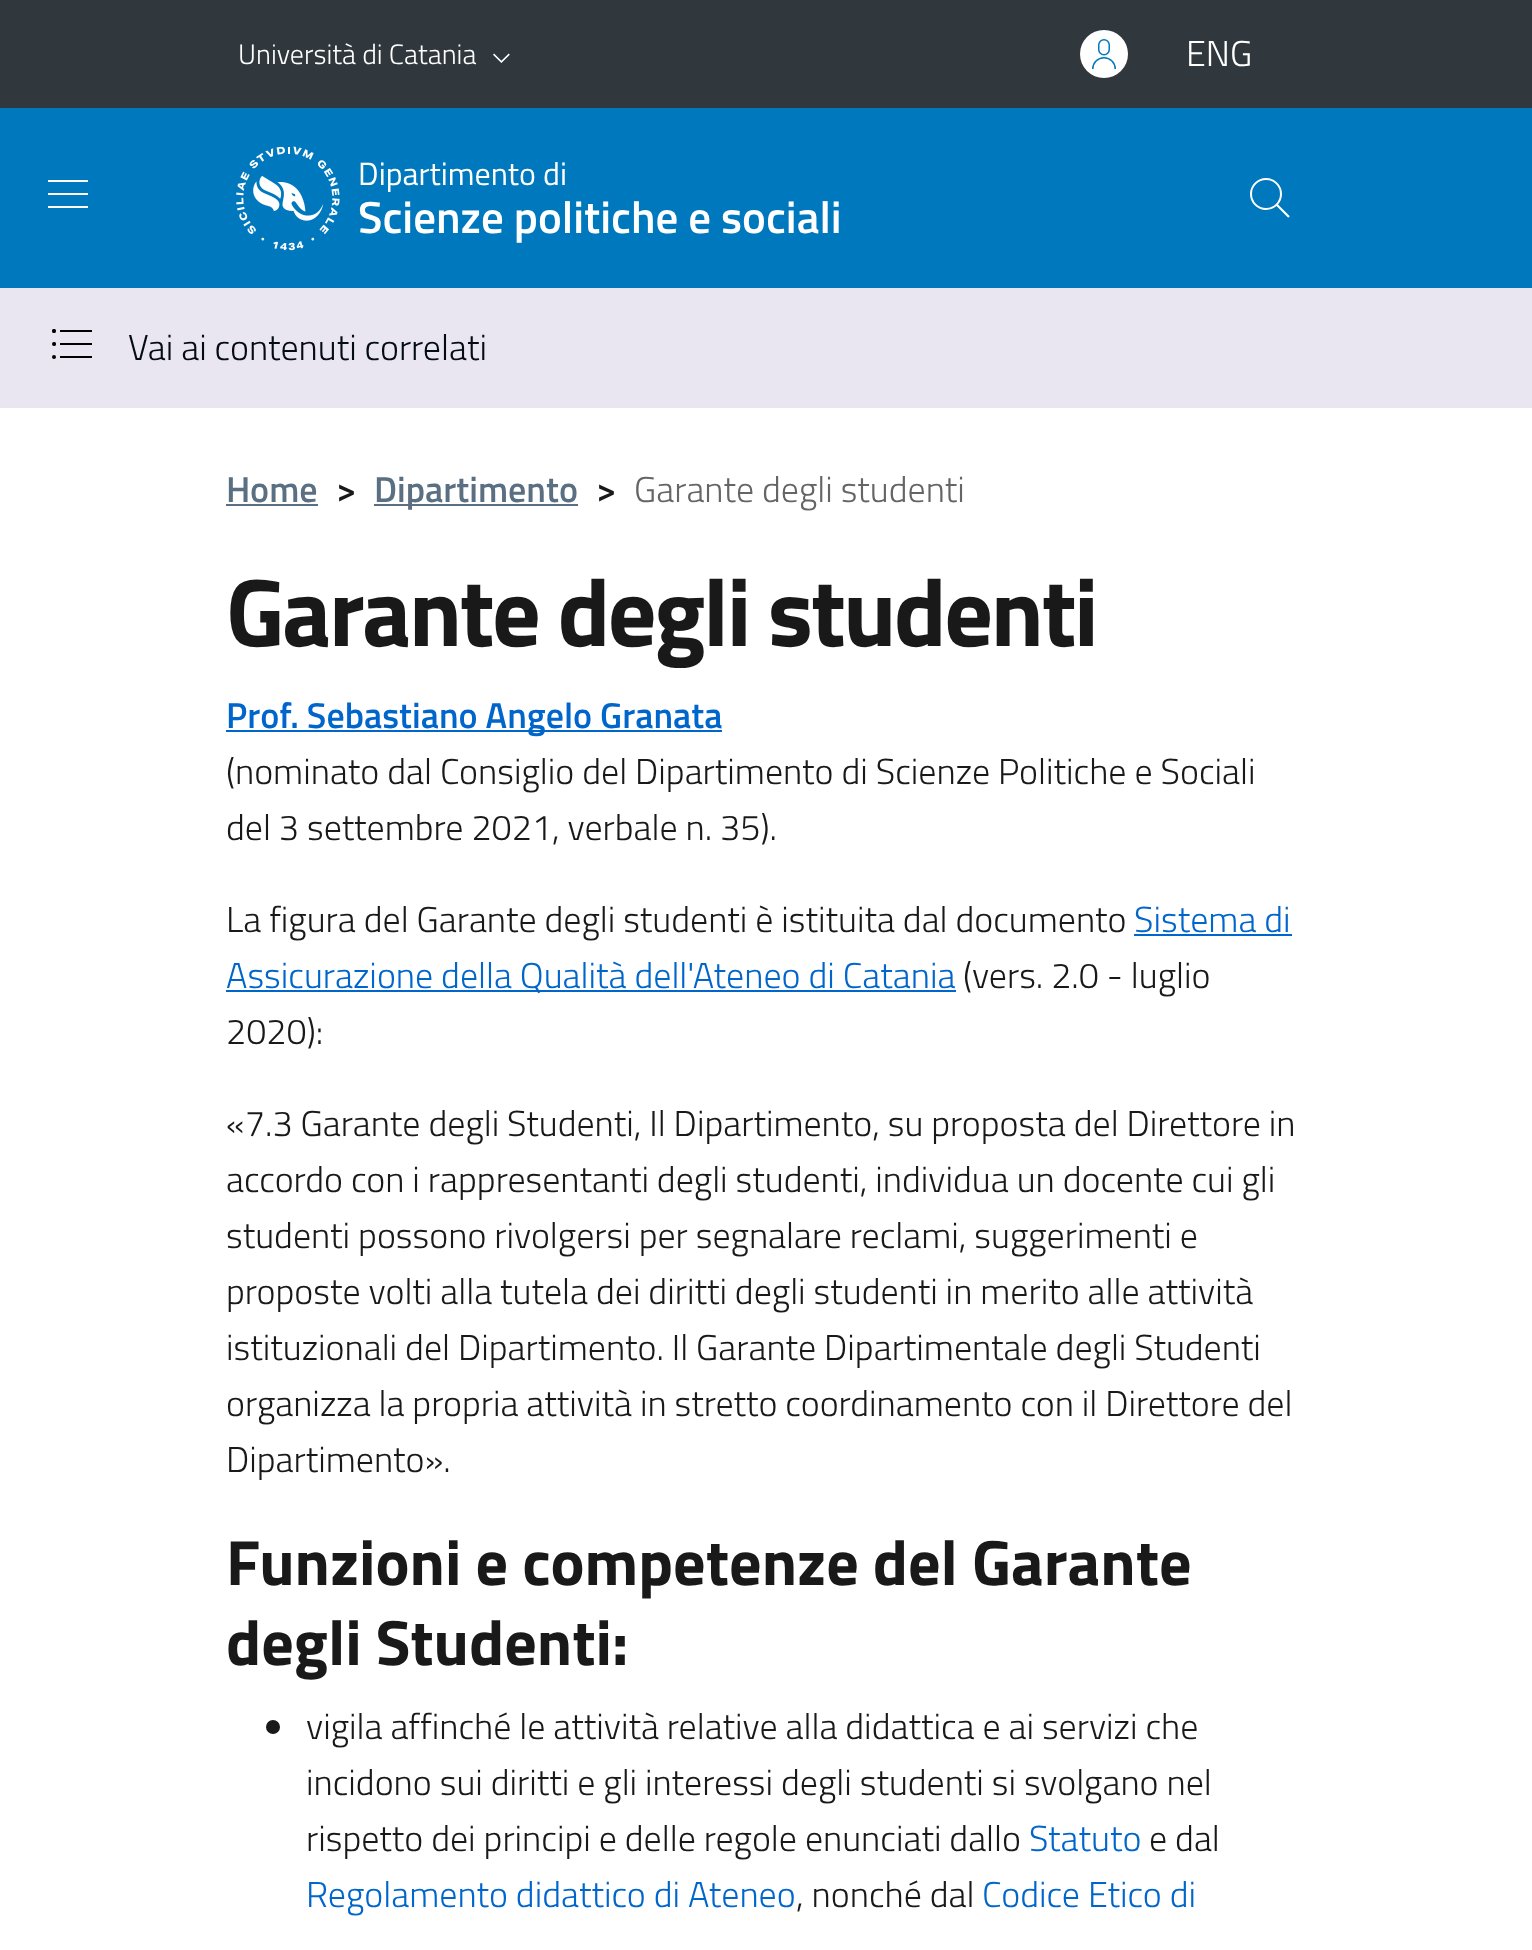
<svg xmlns="http://www.w3.org/2000/svg" width="1532" height="1950" viewBox="0 0 1532 1950">
  <rect width="100%" height="100%" fill="rgb(255,255,255)"/>
  <rect x="0" y="0" width="1532" height="108" fill="rgb(48,55,61)"/>
  <text x="238" y="64" font-family="Titillium Web" font-size="28" font-weight="300" fill="rgb(255,255,255)">Università di Catania</text>
  <image x="493" y="53" width="17" height="10" href="pic1.png"/>
  <circle cx="1104" cy="54" r="24" fill="rgb(255,255,255)"/>
  <image x="1092" y="39" width="24" height="30" href="pic2.png"/>
  <text x="1186" y="66" font-family="Titillium Web" font-size="36" font-weight="300" fill="rgb(255,255,255)">ENG</text>
  <rect x="0" y="108" width="1532" height="180" fill="rgb(0,120,189)"/>
  <image x="48" y="180" width="40" height="28" href="pic3.png"/>
  <image x="236" y="146" width="104" height="105" href="pic4.png"/>
  <text x="358" y="185" font-family="Titillium Web" font-size="32" fill="rgb(255,255,255)">Dipartimento di</text>
  <text x="358" y="233" font-family="Titillium Web" font-size="45" font-weight="600" fill="rgb(255,255,255)">Scienze politiche e sociali</text>
  <image x="1250" y="178" width="40" height="40" href="pic5.png"/>
  <rect x="0" y="288" width="1532" height="120" fill="rgb(233,230,242)"/>
  <image x="52" y="329" width="40" height="30" href="pic6.png"/>
  <text x="128" y="360" font-family="Titillium Web" font-size="36" font-weight="300" fill="rgb(5,11,18)">Vai ai contenuti correlati</text>
  <text x="226" y="502" font-family="Titillium Web" font-size="36" font-weight="600" fill="rgb(91,111,130)">Home</text>
  <rect x="226" y="504" width="92" height="2" fill="rgb(91,111,130)"/>
  <text x="336" y="502" font-family="Titillium Web" font-size="36" font-weight="600" fill="rgb(25,25,26)">&gt;</text>
  <rect x="374" y="504" width="204" height="2" fill="rgb(91,111,130)"/>
  <text x="374" y="502" font-family="Titillium Web" font-size="36" font-weight="600" fill="rgb(91,111,130)">Dipartimento</text>
  <text x="596" y="502" font-family="Titillium Web" font-size="36" font-weight="600" fill="rgb(25,25,26)">&gt;</text>
  <text x="634" y="502" font-family="Titillium Web" font-size="36" font-weight="300" fill="rgb(101,101,102)">Garante degli studenti</text>
  <text x="226" y="646" font-family="Titillium Web" font-size="96" font-weight="bold" letter-spacing="-2.4" fill="rgb(25,25,26)">Garante degli studenti</text>
  <rect x="226" y="730" width="496" height="2" fill="rgb(0,102,204)"/>
  <text x="226" y="728" font-family="Titillium Web" font-size="36" font-weight="600" fill="rgb(0,102,204)">Prof. Sebastiano Angelo Granata</text>
  <g font-family="Titillium Web" font-size="36" font-weight="300" fill="rgb(25,25,26)">
    <text>
      <tspan x="226" y="784">(nominato dal Consiglio del Dipartimento di Scienze Politiche e Sociali</tspan>
      <tspan x="226" y="840">del 3 settembre 2021, verbale n. 35).</tspan>
    </text>
    <text x="226" y="932">La figura del Garante degli studenti è istituita dal documento</text>
  </g>
  <text x="1134" y="932" font-family="Titillium Web" font-size="36" font-weight="300" fill="rgb(0,102,204)">Sistema di</text>
  <rect x="1134" y="934" width="158" height="2" fill="rgb(0,102,204)"/>
  <rect x="226" y="990" width="730" height="2" fill="rgb(0,102,204)"/>
  <text x="226" y="988" font-family="Titillium Web" font-size="36" font-weight="300" fill="rgb(0,102,204)">Assicurazione della Qualità dell'Ateneo di Catania</text>
  <g font-family="Titillium Web" font-size="36" font-weight="300" fill="rgb(25,25,26)">
    <text x="963" y="988">(vers. 2.0 - luglio</text>
    <text x="226" y="1044">2020):</text>
    <text>
      <tspan x="226" y="1136">«7.3 Garante degli Studenti, Il Dipartimento, su proposta del Direttore in</tspan>
      <tspan x="226" y="1192">accordo con i rappresentanti degli studenti, individua un docente cui gli</tspan>
      <tspan x="226" y="1248">studenti possono rivolgersi per segnalare reclami, suggerimenti e</tspan>
      <tspan x="226" y="1304">proposte volti alla tutela dei diritti degli studenti in merito alle attività</tspan>
      <tspan x="226" y="1360">istituzionali del Dipartimento. Il Garante Dipartimentale degli Studenti</tspan>
      <tspan x="226" y="1416">organizza la propria attività in stretto coordinamento con il Direttore del</tspan>
      <tspan x="226" y="1472">Dipartimento».</tspan>
    </text>
  </g>
  <g font-family="Titillium Web" font-size="64" font-weight="bold" fill="rgb(25,25,26)">
    <text>
      <tspan x="226" y="1585">Funzioni e competenze del Garante</tspan>
      <tspan x="226" y="1665">degli Studenti:</tspan>
    </text>
  </g>
  <circle cx="273" cy="1727" r="7" fill="rgb(25,25,26)"/>
  <g font-family="Titillium Web" font-size="36" font-weight="300" fill="rgb(25,25,26)">
    <text>
      <tspan x="306" y="1739">vigila affinché le attività relative alla didattica e ai servizi che</tspan>
      <tspan x="306" y="1795">incidono sui diritti e gli interessi degli studenti si svolgano nel</tspan>
      <tspan x="306" y="1851">rispetto dei principi e delle regole enunciati dallo</tspan>
    </text>
  </g>
  <text x="1029" y="1851" font-family="Titillium Web" font-size="36" font-weight="300" fill="rgb(0,102,204)">Statuto</text>
  <text x="1149" y="1851" font-family="Titillium Web" font-size="36" font-weight="300" fill="rgb(25,25,26)">e dal</text>
  <text x="306" y="1907" font-family="Titillium Web" font-size="36" font-weight="300" fill="rgb(0,102,204)">Regolamento didattico di Ateneo</text>
  <text x="796" y="1907" font-family="Titillium Web" font-size="36" font-weight="300" fill="rgb(25,25,26)">, nonché dal</text>
  <text x="982" y="1907" font-family="Titillium Web" font-size="36" font-weight="300" fill="rgb(0,102,204)">Codice Etico di</text>
</svg>
